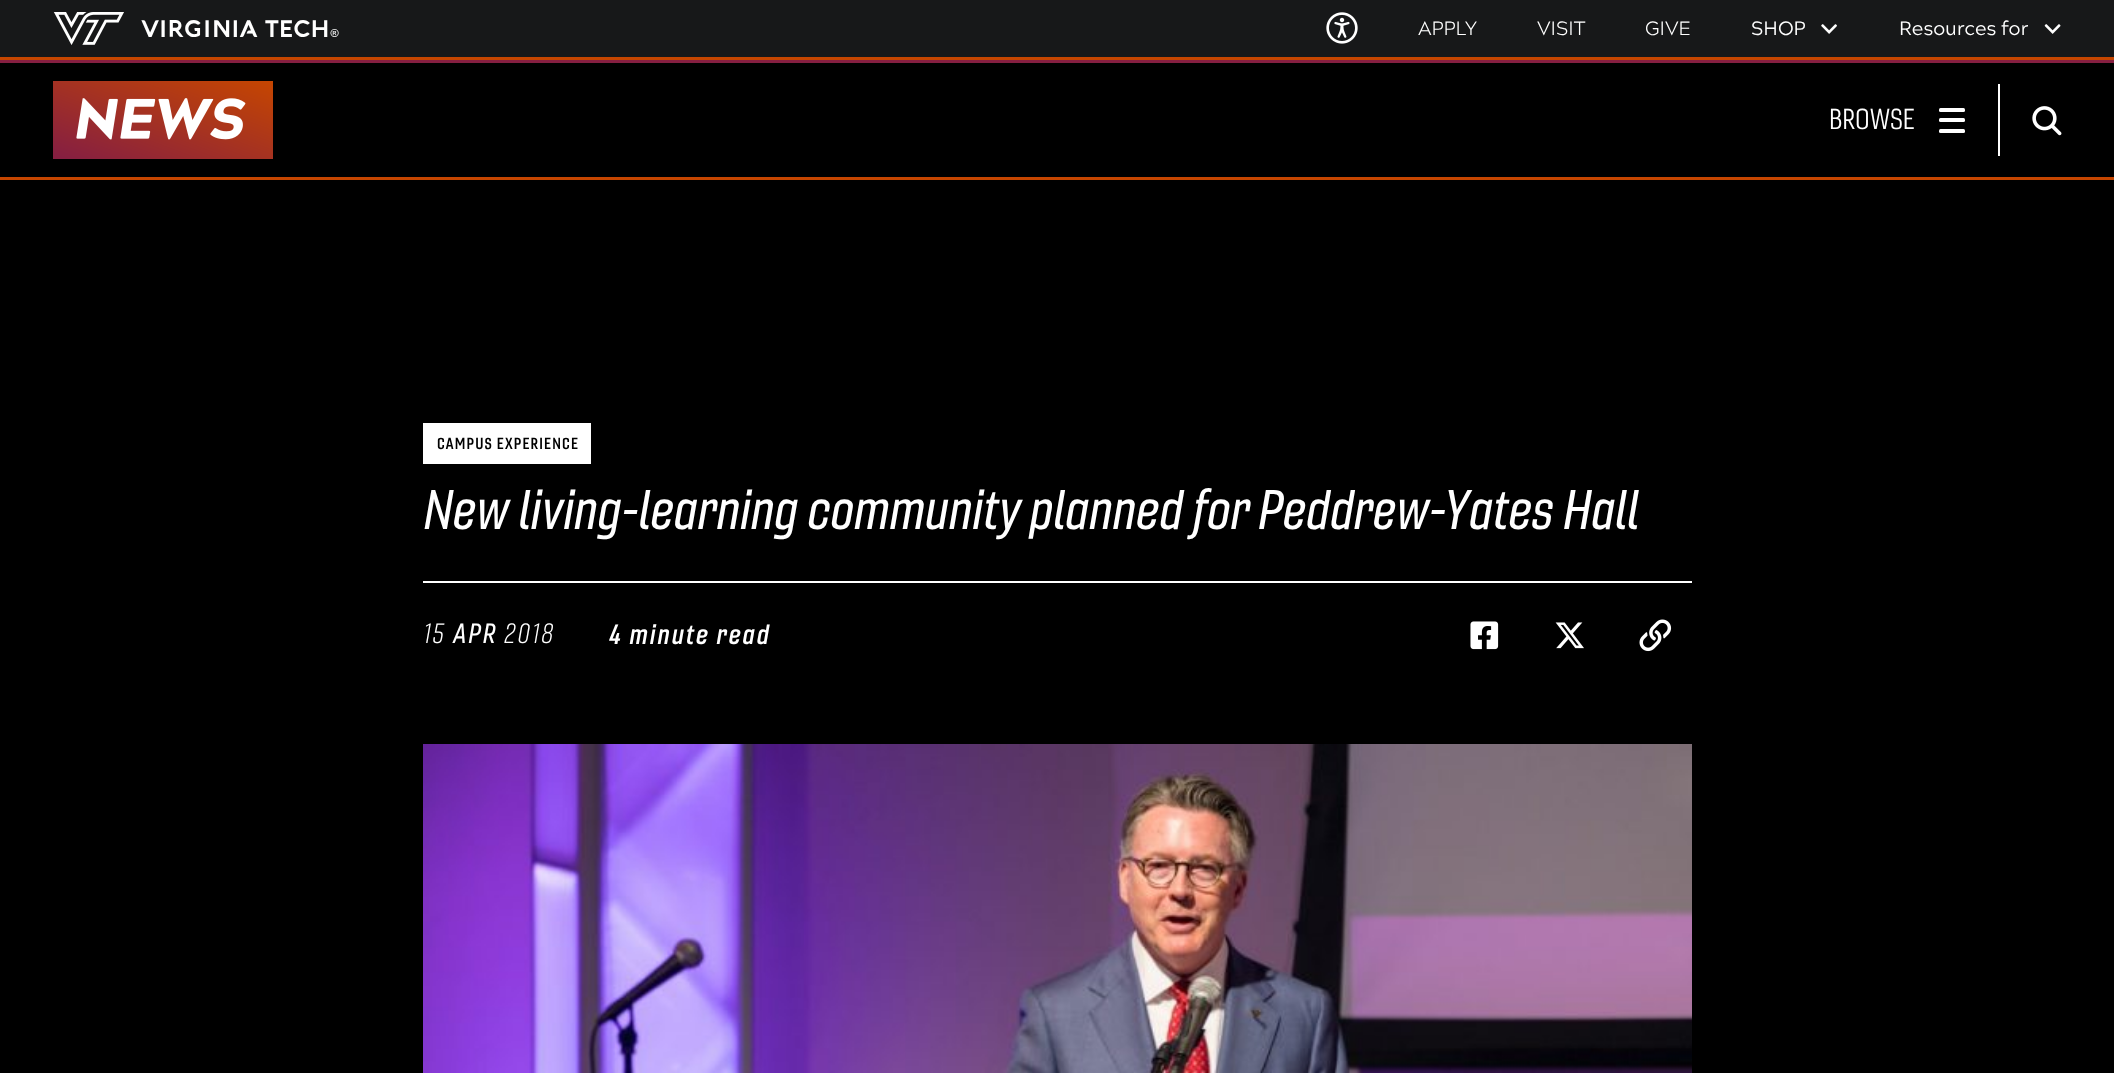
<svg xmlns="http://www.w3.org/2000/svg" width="2114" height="1073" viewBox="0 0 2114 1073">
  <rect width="100%" height="100%" fill="rgb(23,24,25)"/>
  <image x="53" y="12" width="71" height="33" href="pic1.png"/>
  <text x="141" y="37" font-family="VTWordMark" font-size="24" fill="rgb(255,255,255)">VIRGINIA TECH®</text>
  <rect x="0" y="57" width="2114" height="3" fill="rgb(198,70,0)"/>
  <image x="1326" y="12" width="32" height="32" href="pic2.png"/>
  <g font-family="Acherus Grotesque" font-size="19.25" font-weight="300" fill="rgb(255,255,255)">
    <text x="1418" y="35">APPLY</text>
    <text x="1537" y="35">VISIT</text>
    <text x="1645" y="35">GIVE</text>
  </g>
  <text x="1751" y="35" font-family="Acherus Grotesque" font-size="19.25" fill="rgb(255,255,255)">SHOP</text>
  <image x="1821" y="24" width="16" height="10" href="pic3.png"/>
  <text x="1899" y="35" font-family="Acherus Grotesque" font-size="19.25" fill="rgb(255,255,255)">Resources for</text>
  <image x="2044" y="24" width="17" height="10" href="pic4.png"/>
  <rect x="0" y="63" width="2114" height="114" fill="rgb(0,0,0)"/>
  <rect x="0" y="60" width="2114" height="3" fill="rgb(134,31,65)"/>
  <rect x="0" y="177" width="2114" height="3" fill="rgb(198,70,0)"/>
  <image x="53" y="81" width="220" height="78" href="pic5.png"/>
  <text x="1829" y="129" font-family="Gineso" font-size="28" fill="rgb(255,255,255)">BROWSE</text>
  <rect x="1939" y="108" width="26" height="4" rx="1.5" fill="rgb(255,255,255)"/>
  <rect x="1939" y="118" width="26" height="4" rx="1.5" fill="rgb(255,255,255)"/>
  <rect x="1939" y="129" width="26" height="4" rx="1.5" fill="rgb(255,255,255)"/>
  <rect x="1998" y="84" width="2" height="72" fill="rgb(255,255,255)"/>
  <image x="2032" y="106" width="30" height="30" href="pic6.png"/>
  <rect x="0" y="180" width="2114" height="893" fill="rgb(0,0,0)"/>
  <image x="423" y="744" width="1269" height="329" href="pic7.png"/>
  <rect x="423" y="423" width="168" height="41" fill="rgb(255,255,255)"/>
  <text x="437" y="449" font-family="Gineso" font-size="15.5" font-weight="bold" letter-spacing="1.2" fill="rgb(0,0,0)">CAMPUS EXPERIENCE</text>
  <text x="423" y="529" font-family="Gineso" font-size="54" font-weight="600" font-style="italic" fill="rgb(255,255,255)">New living-learning community planned for Peddrew-Yates Hall</text>
  <rect x="423" y="581" width="1269" height="2" fill="rgb(255,255,255)"/>
  <text x="423" y="643" font-family="Gineso" font-size="27" font-weight="300" font-style="italic" letter-spacing="2" fill="rgb(255,255,255)">15</text>
  <text x="453" y="643" font-family="Gineso" font-size="27" font-weight="600" font-style="italic" letter-spacing="2" fill="rgb(255,255,255)">APR</text>
  <text x="504" y="643" font-family="Gineso" font-size="27" font-weight="300" font-style="italic" letter-spacing="2" fill="rgb(255,255,255)">2018</text>
  <text x="609" y="644" font-family="Gineso" font-size="27" font-weight="bold" font-style="italic" letter-spacing="2" fill="rgb(255,255,255)">4 minute read</text>
  <image x="1470" y="621" width="29" height="29" href="pic8.png"/>
  <image x="1555" y="622" width="29" height="27" href="pic9.png"/>
  <image x="1639" y="619" width="33" height="33" href="pic10.png"/>
</svg>
